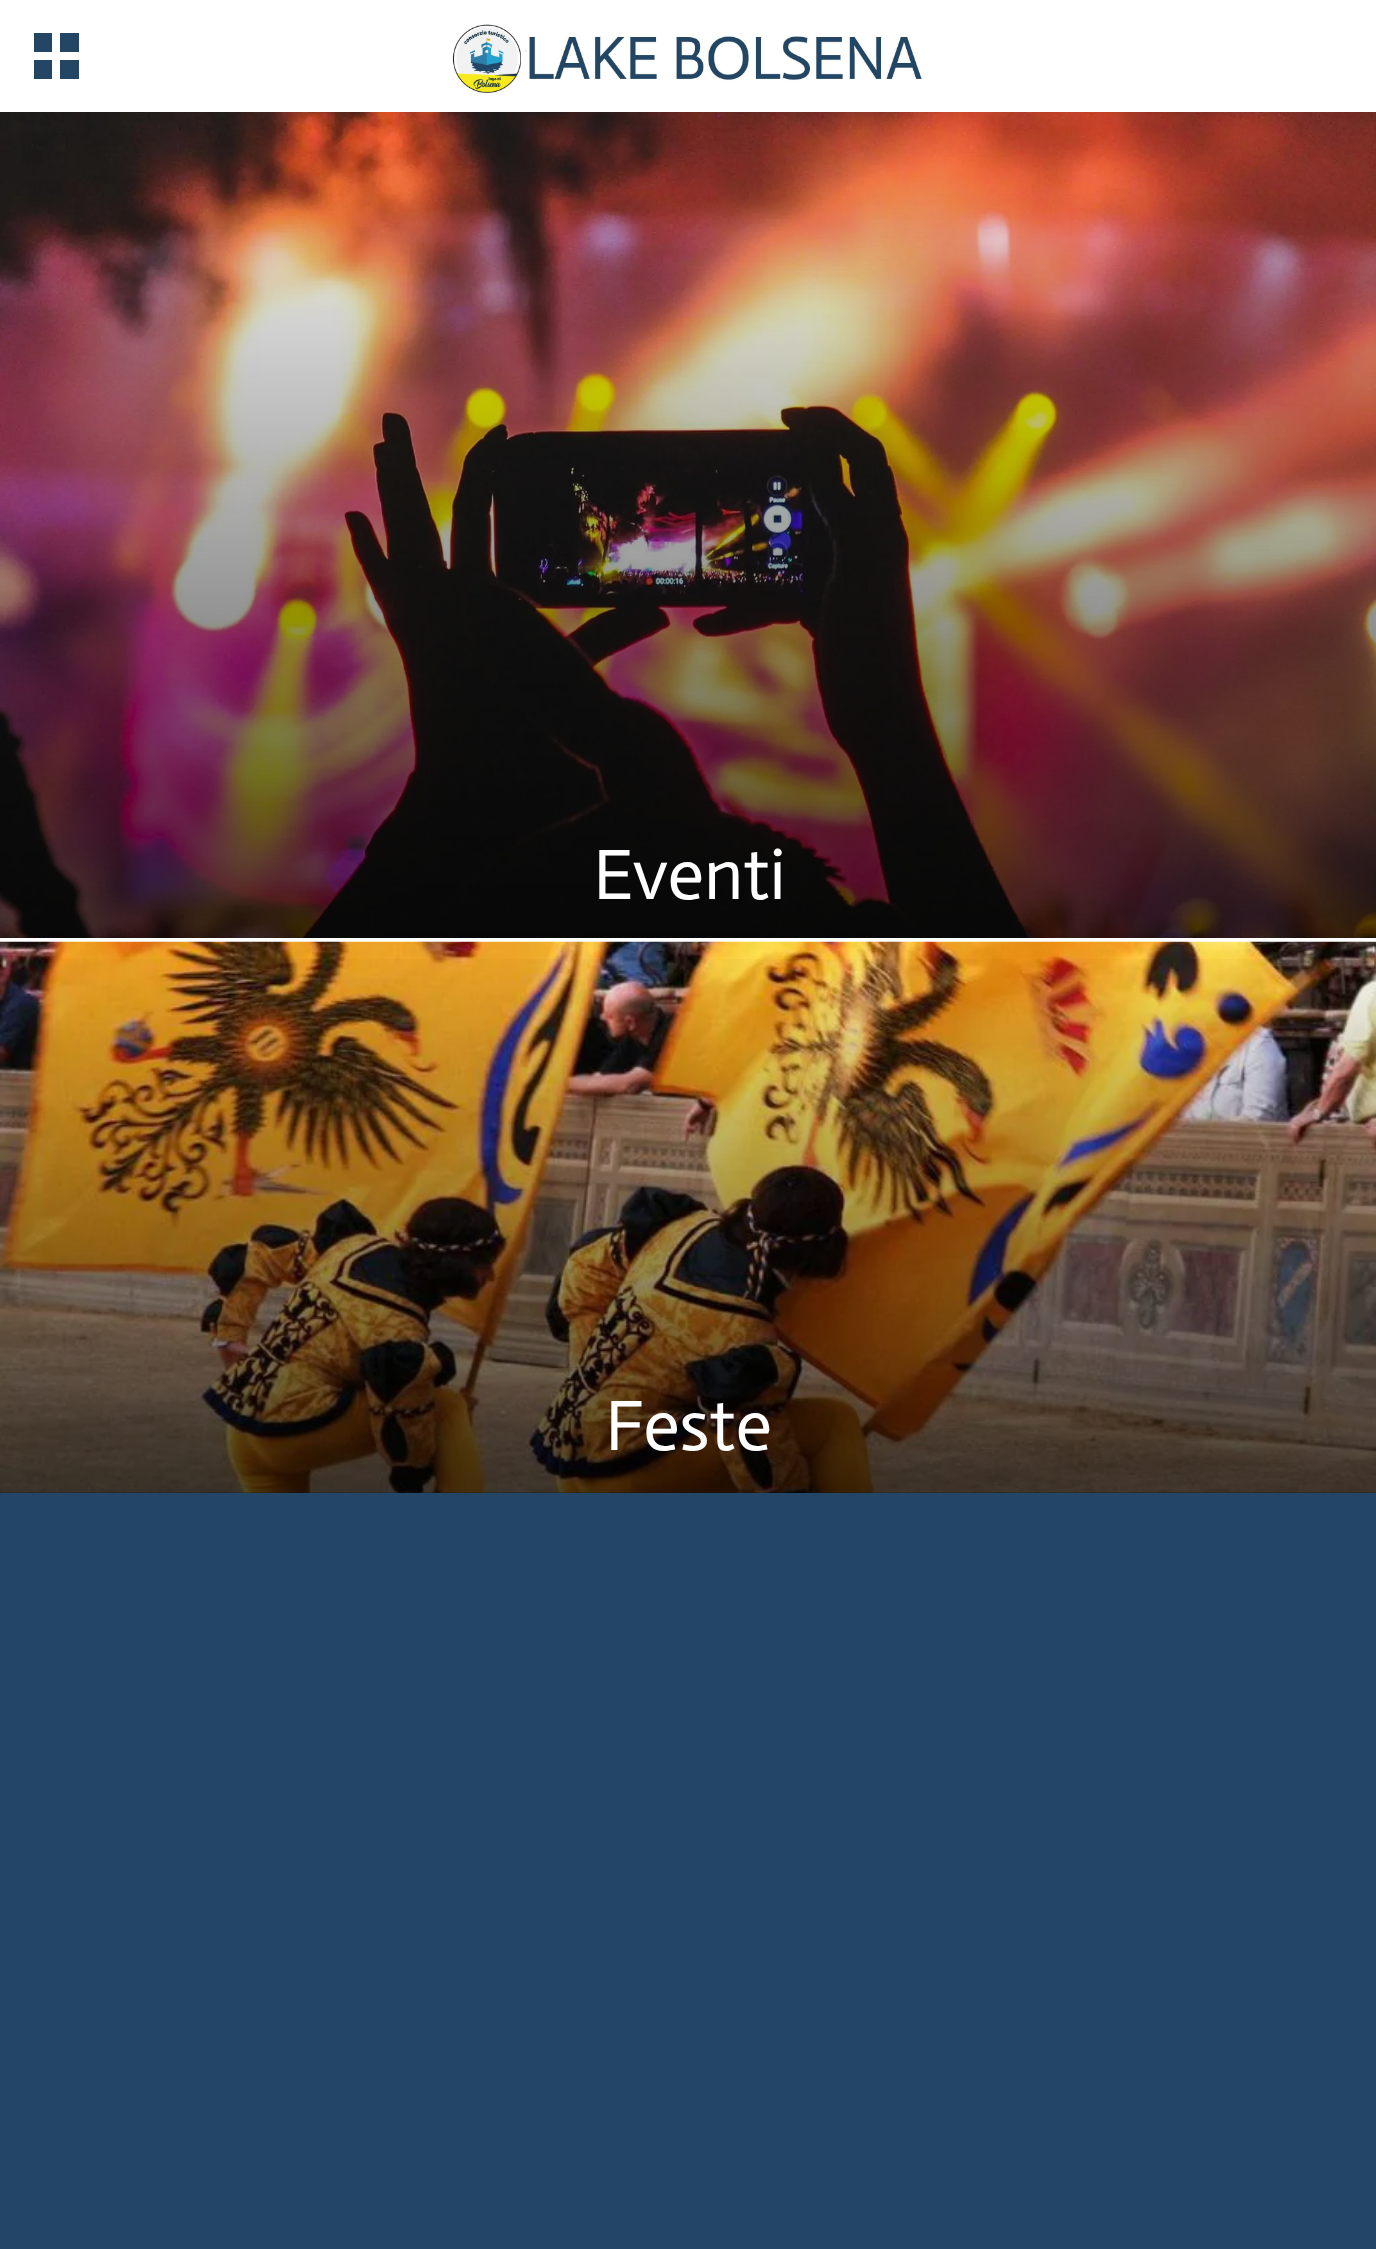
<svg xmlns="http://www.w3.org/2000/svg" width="1376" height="2249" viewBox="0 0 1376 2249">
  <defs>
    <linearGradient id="g1" gradientUnits="userSpaceOnUse" x1="689" y1="942" x2="689" y2="1498"><stop offset="0" stop-color="rgb(0,0,0)" stop-opacity="0"/><stop offset="1" stop-color="rgb(0,0,0)" stop-opacity="0.7"/></linearGradient>
  </defs>
  <rect width="100%" height="100%" fill="rgb(35,70,103)"/>
  <rect x="0" y="0" width="1376" height="112" fill="rgb(255,255,255)"/>
  <path d="M34 33H52V52H34ZM60 33H79V52H60ZM34 60H52V79H34ZM60 60H79V79H60Z" fill="rgb(35,70,100)"/>
  <image x="452" y="24" width="471" height="70" href="pic1.png"/>
  <rect x="0" y="938" width="1376" height="4" fill="rgb(255,255,255)"/>
  <image x="0" y="112" width="1376" height="826" href="pic2.png"/>
  <text x="593" y="899" font-family="Actor" font-size="72" fill="rgb(255,255,255)">Eventi</text>
  <image x="0" y="941" width="1376" height="552" href="pic3.png"/>
  <rect x="0" y="959" width="1376" height="534" fill="url(#g1)"/>
  <text x="605" y="1450" font-family="Actor" font-size="72" fill="rgb(255,255,255)">Feste</text>
</svg>
